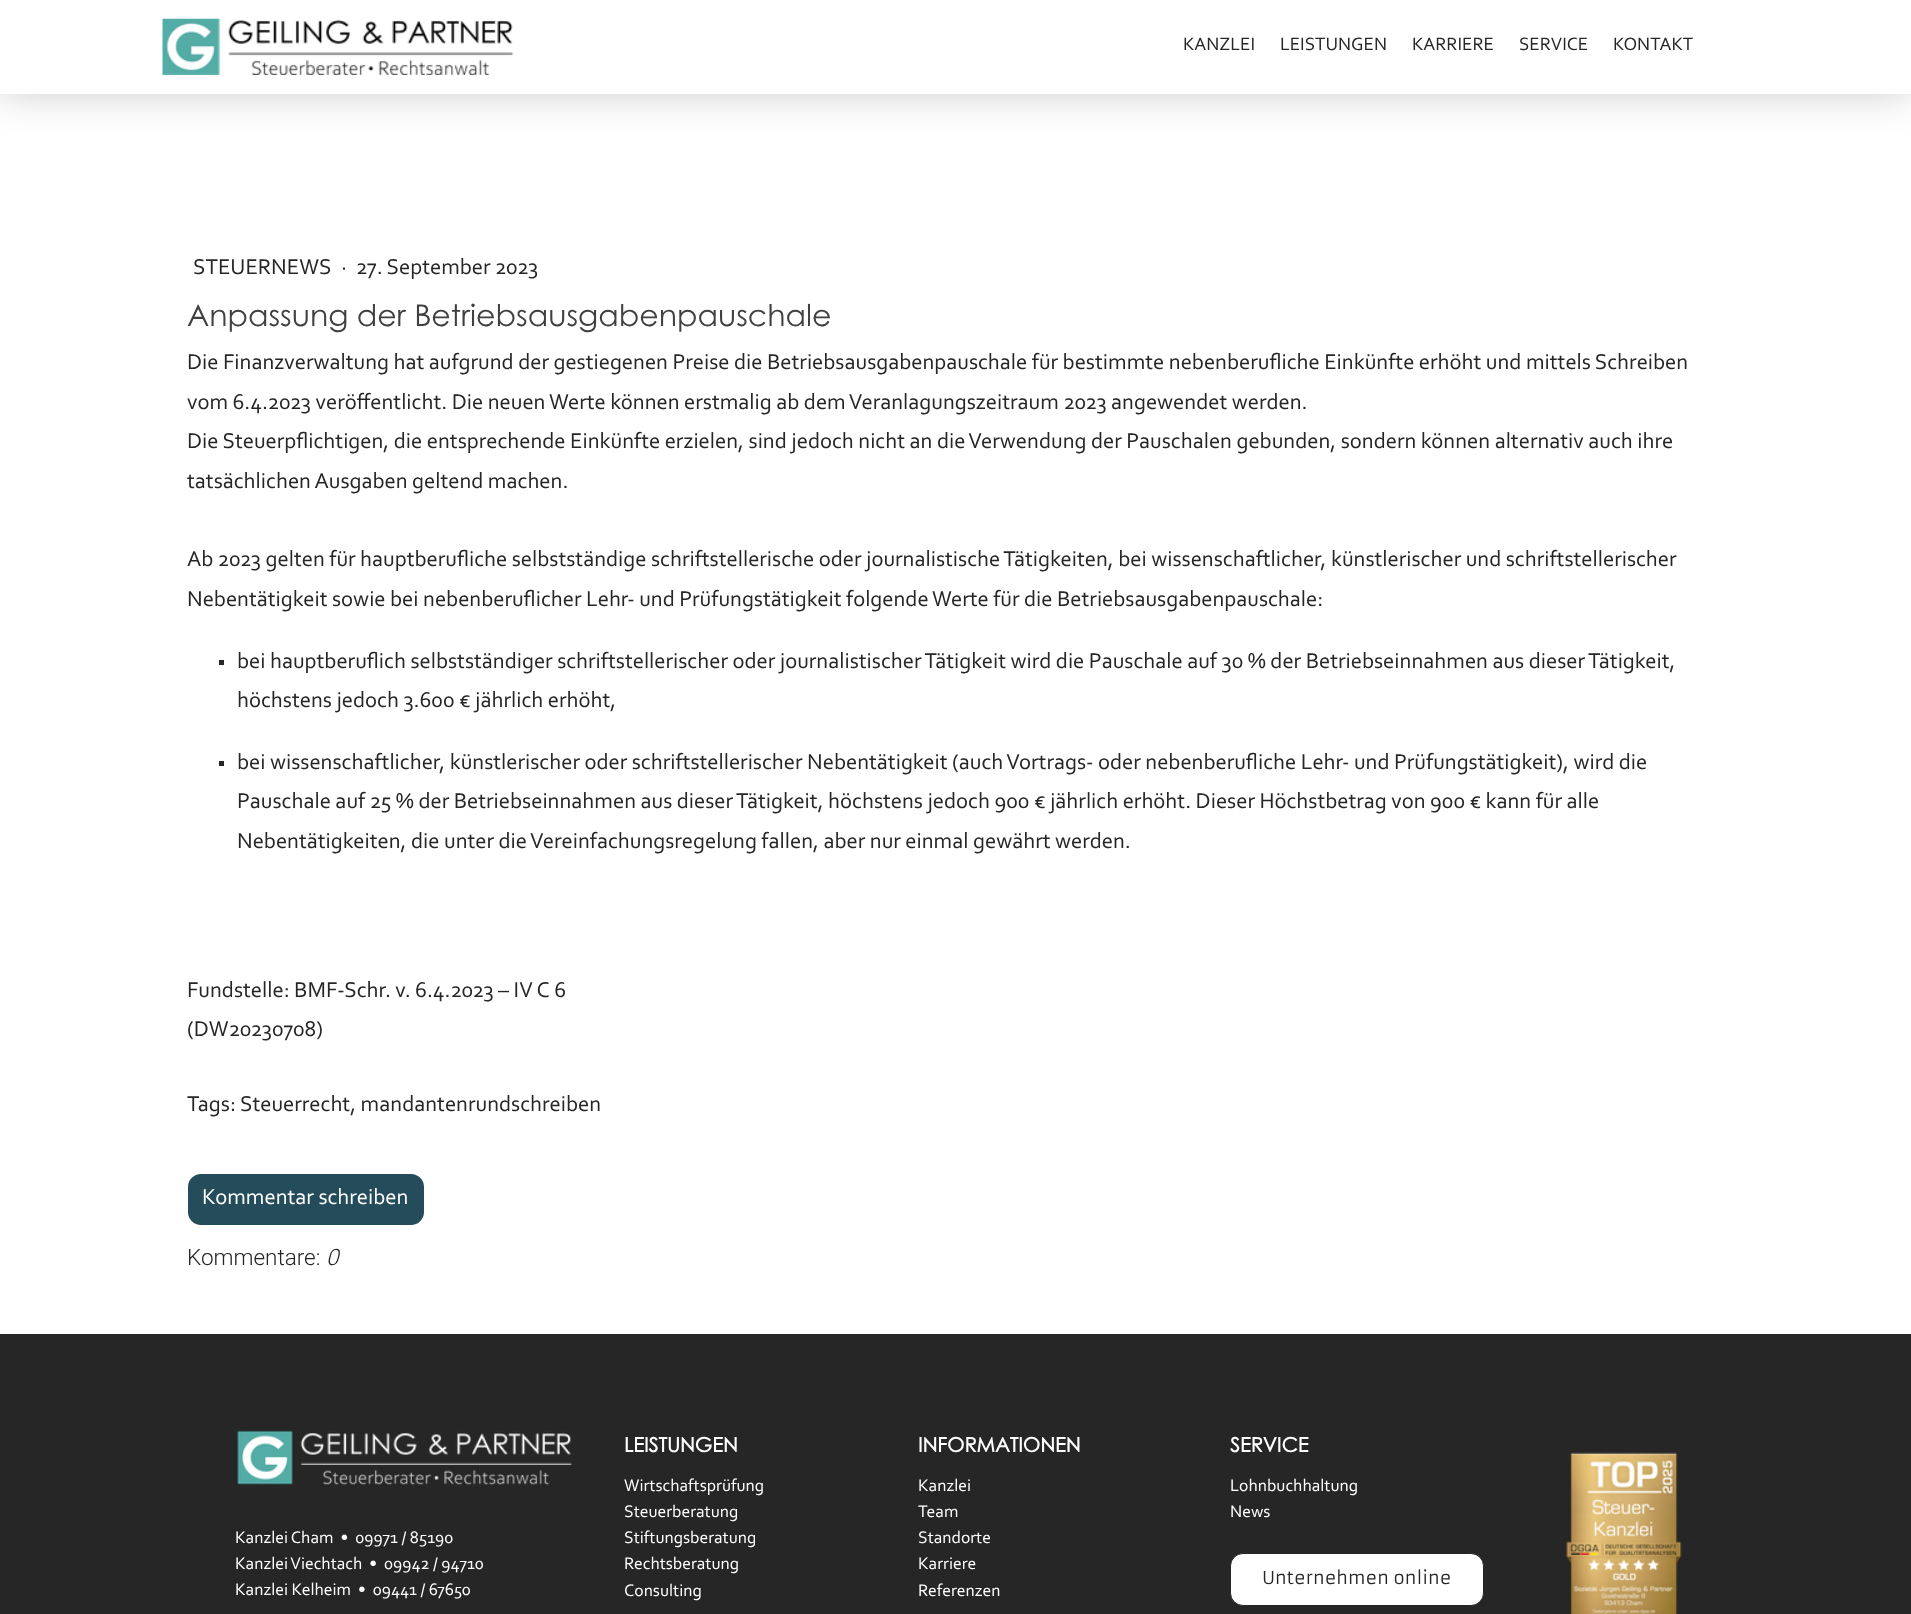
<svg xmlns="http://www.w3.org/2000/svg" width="1911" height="1614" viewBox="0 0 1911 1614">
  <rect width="100%" height="100%" fill="rgb(255,255,255)"/>
  <rect x="0" y="0" width="1911" height="94" fill="rgba(0,0,0,0.2)" filter="blur(19px)"/>
  <rect x="0" y="0" width="1911" height="94" fill="rgb(255,255,255)"/>
  <image x="162" y="18" width="351" height="57" href="pic1.png"/>
  <g font-family="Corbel" font-size="18.75" fill="rgb(38,38,38)">
    <text x="1183" y="50">KANZLEI</text>
    <text x="1280" y="50">LEISTUNGEN</text>
    <text x="1412" y="50">KARRIERE</text>
    <text x="1519" y="50">SERVICE</text>
    <text x="1613" y="50">KONTAKT</text>
  </g>
  <g font-family="Corbel" font-size="22.5" fill="rgb(38,38,38)">
    <text x="193" y="274">STEUERNEWS</text>
    <text x="341" y="274">·</text>
    <text x="356" y="274">27. September 2023</text>
  </g>
  <text x="187" y="326" font-family="Century Gothic" font-size="30" fill="rgb(64,64,64)">Anpassung der Betriebsausgabenpauschale</text>
  <g font-family="Corbel" font-size="22.5" fill="rgb(38,38,38)">
    <text>
      <tspan x="187" y="369">Die Finanzverwaltung hat aufgrund der gestiegenen Preise die Betriebsausgabenpauschale für bestimmte nebenberufliche Einkünfte erhöht und mittels Schreiben</tspan>
      <tspan x="187" y="409">vom 6.4.2023 veröffentlicht. Die neuen</tspan>
    </text>
    <text x="549" y="409">Werte können erstmalig ab dem Veranlagungszeitraum 2023 angewendet werden.</text>
    <text>
      <tspan x="187" y="448">Die Steuerpflichtigen, die entsprechende Einkünfte erzielen, sind jedoch nicht an die Verwendung der Pauschalen gebunden, sondern können alternativ auch ihre</tspan>
      <tspan x="187" y="488">tatsächlichen Ausgaben geltend machen.</tspan>
    </text>
    <text>
      <tspan x="187" y="566">Ab 2023 gelten für hauptberufliche selbstständige schriftstellerische oder journalistische Tätigkeiten, bei wissenschaftlicher, künstlerischer und schriftstellerischer</tspan>
      <tspan x="187" y="606">Nebentätigkeit sowie bei nebenberuflicher Lehr- und Prüfungstätigkeit folgende Werte für die Betriebsausgabenpauschale:</tspan>
    </text>
  </g>
  <rect x="219" y="660" width="5" height="5" fill="rgb(38,38,38)"/>
  <g font-family="Corbel" font-size="22.5" fill="rgb(38,38,38)">
    <text>
      <tspan x="237" y="668">bei hauptberuflich selbstständiger schriftstellerischer oder journalistischer Tätigkeit wird die Pauschale auf 30 % der Betriebseinnahmen aus dieser Tätigkeit,</tspan>
      <tspan x="237" y="707">höchstens jedoch 3.600 € jährlich erhöht,</tspan>
    </text>
  </g>
  <rect x="219" y="761" width="5" height="5" fill="rgb(38,38,38)"/>
  <g font-family="Corbel" font-size="22.5" fill="rgb(38,38,38)">
    <text>
      <tspan x="237" y="769">bei wissenschaftlicher, künstlerischer oder schriftstellerischer Nebentätigkeit (auch Vortrags- oder nebenberufliche Lehr- und Prüfungstätigkeit), wird die</tspan>
      <tspan x="237" y="808">Pauschale auf 25 % der Betriebseinnahmen aus dieser Tätigkeit, höchstens jedoch 900 € jährlich erhöht. Dieser Höchstbetrag von 900 € kann für alle</tspan>
      <tspan x="237" y="848">Nebentätigkeiten, die unter die Vereinfachungsregelung fallen, aber nur einmal gewährt werden.</tspan>
    </text>
    <text>
      <tspan x="187" y="997">Fundstelle: BMF-Schr. v. 6.4.2023 – IV C 6</tspan>
      <tspan x="187" y="1036">(DW20230708)</tspan>
    </text>
    <text x="187" y="1111">Tags:</text>
    <text x="240" y="1111">Steuerrecht, mandantenrundschreiben</text>
  </g>
  <rect x="189.5" y="1175.5" width="233" height="48" rx="11.5" fill="rgb(36,76,90)" stroke="rgb(36,76,90)" stroke-width="3"/>
  <text x="202" y="1204" font-family="Corbel" font-size="22.5" fill="rgb(255,255,255)">Kommentar schreiben</text>
  <text x="187" y="1265" font-family="Roboto" font-size="22.5" font-weight="300" fill="rgb(38,38,38)">Kommentare:</text>
  <text x="326" y="1265" font-family="Roboto" font-size="22.5" font-weight="300" font-style="italic" fill="rgb(38,38,38)">0</text>
  <rect x="0" y="1334" width="1911" height="280" fill="rgb(38,38,38)"/>
  <image x="237" y="1430" width="335" height="55" href="pic2.png"/>
  <g font-family="Corbel" font-size="17.5" fill="rgb(255,255,255)">
    <text xml:space="preserve"><tspan x="235" y="1543">Kanzlei Cham  •  09971 / 85190</tspan><tspan x="235" y="1569">Kanzlei Viechtach  •  09942 / 94710</tspan><tspan x="235" y="1595">Kanzlei Kelheim  •  09441 / 67650</tspan></text>
  </g>
  <text x="624" y="1452" font-family="Century Gothic" font-size="20" font-weight="bold" fill="rgb(255,255,255)">LEISTUNGEN</text>
  <g font-family="Corbel" font-size="17.5" fill="rgb(255,255,255)">
    <text>
      <tspan x="624" y="1491">Wirtschaftsprüfung</tspan>
      <tspan x="624" y="1517">Steuerberatung</tspan>
      <tspan x="624" y="1543">Stiftungsberatung</tspan>
      <tspan x="624" y="1569">Rechtsberatung</tspan>
      <tspan x="624" y="1596">Consulting</tspan>
    </text>
  </g>
  <text x="918" y="1452" font-family="Century Gothic" font-size="20" font-weight="bold" fill="rgb(255,255,255)">INFORMATIONEN</text>
  <g font-family="Corbel" font-size="17.5" fill="rgb(255,255,255)">
    <text>
      <tspan x="918" y="1491">Kanzlei</tspan>
      <tspan x="918" y="1517">Team</tspan>
      <tspan x="918" y="1543">Standorte</tspan>
      <tspan x="918" y="1569">Karriere</tspan>
      <tspan x="918" y="1596">Referenzen</tspan>
    </text>
  </g>
  <text x="1230" y="1452" font-family="Century Gothic" font-size="20" font-weight="bold" fill="rgb(255,255,255)">SERVICE</text>
  <g font-family="Corbel" font-size="17.5" fill="rgb(255,255,255)">
    <text>
      <tspan x="1230" y="1491">Lohnbuchhaltung</tspan>
      <tspan x="1230" y="1517">News</tspan>
    </text>
  </g>
  <rect x="1230.5" y="1553.5" width="253" height="52" rx="12.5" fill="rgb(255,255,255)" stroke="rgb(38,38,38)"/>
  <text x="1262" y="1584" font-family="Armata" font-size="17.5" fill="rgb(38,38,38)">Unternehmen online</text>
  <image x="1566" y="1452" width="116" height="162" href="pic3.png"/>
</svg>
